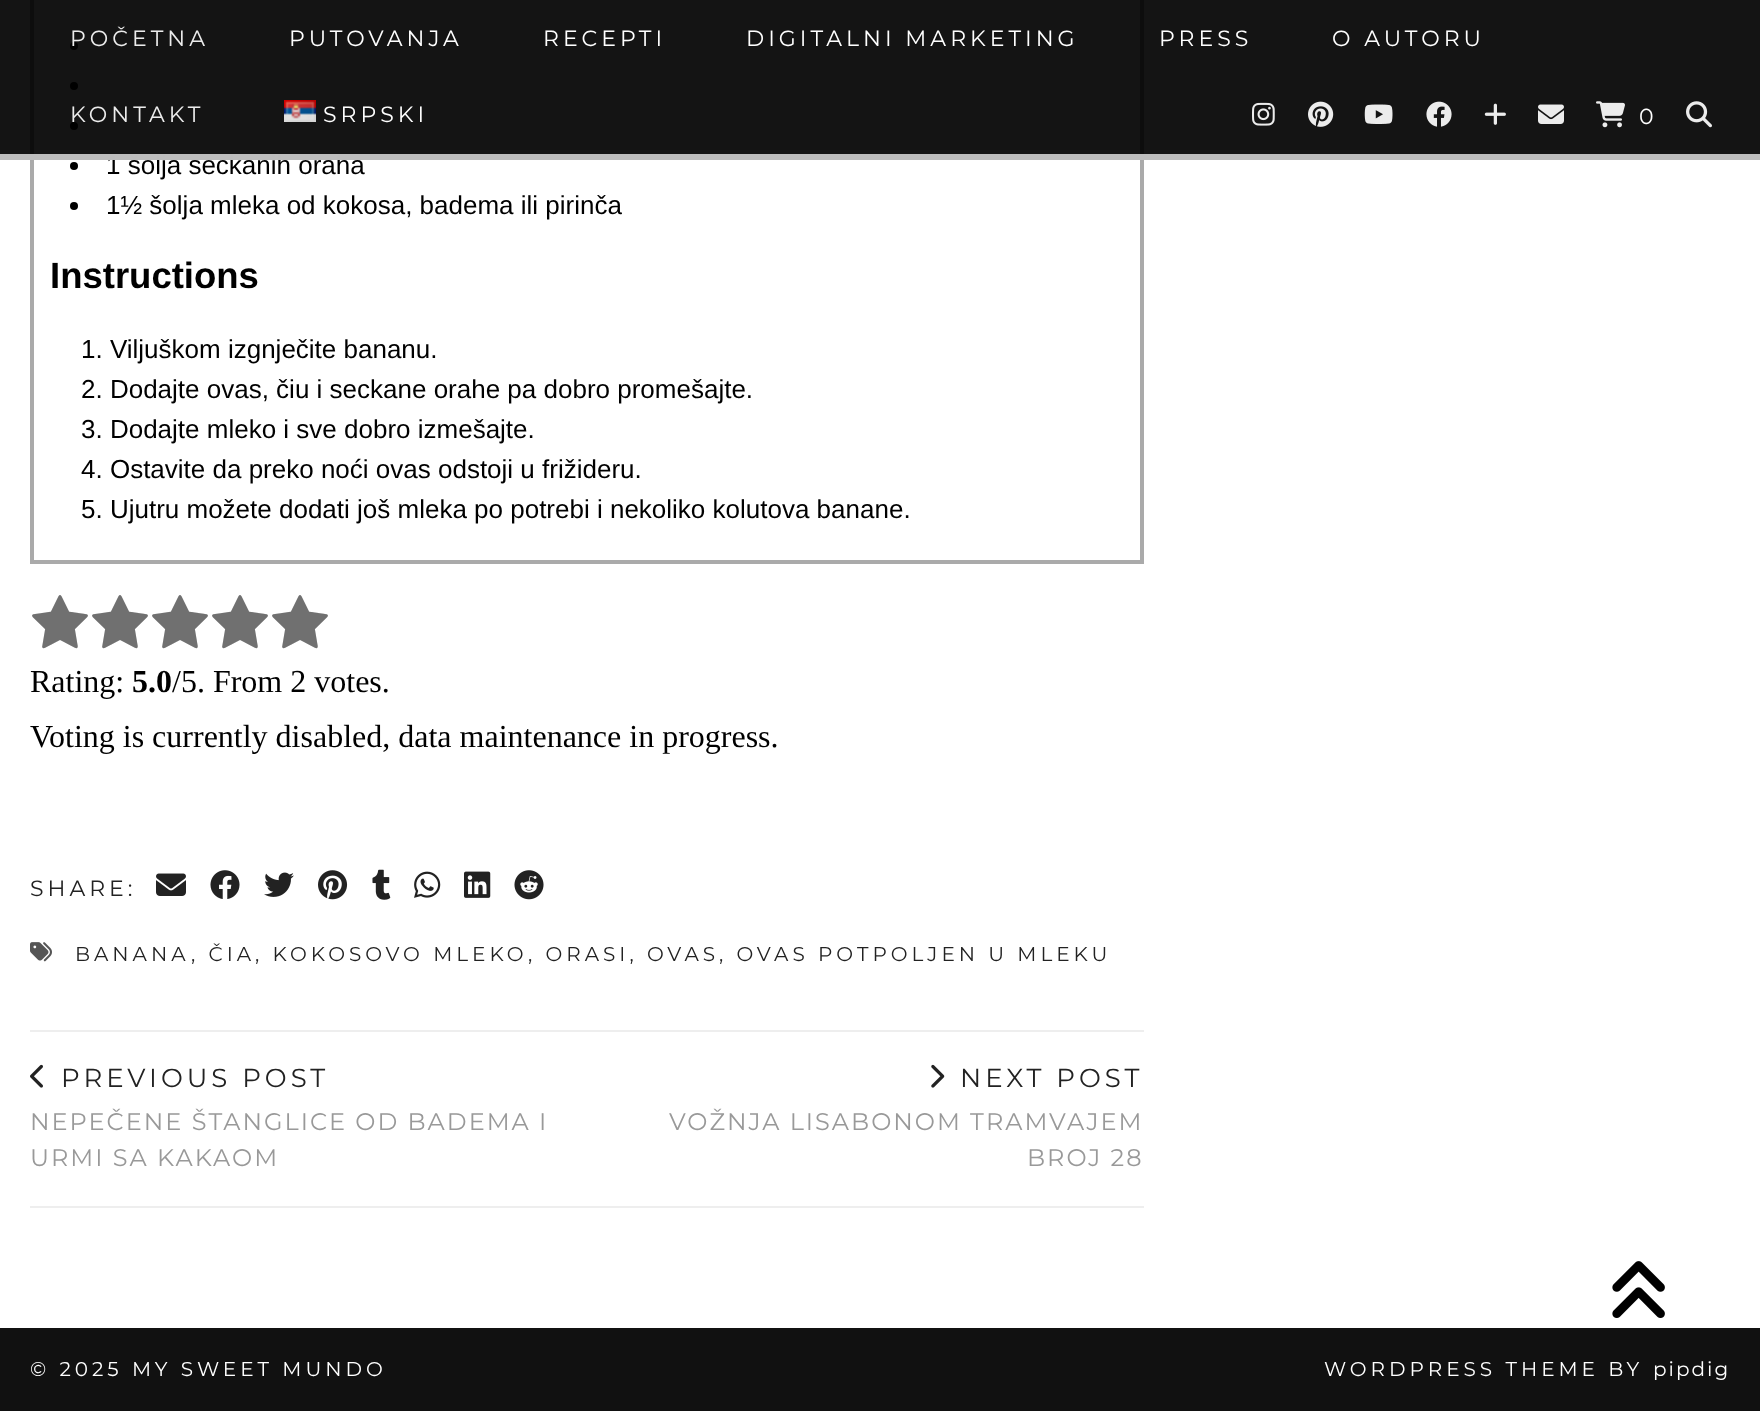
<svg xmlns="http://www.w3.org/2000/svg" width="1760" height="1411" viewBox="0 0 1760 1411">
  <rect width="100%" height="100%" fill="rgb(255,255,255)"/>
  <rect x="32" y="-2" width="1110" height="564" fill="none" stroke="rgb(170,170,170)" stroke-width="4"/>
  <circle cx="74" cy="46" r="4" fill="rgb(0,0,0)"/>
  <circle cx="74" cy="86" r="4" fill="rgb(0,0,0)"/>
  <circle cx="74" cy="126" r="4" fill="rgb(0,0,0)"/>
  <text x="106" y="174" font-family="Liberation Sans" font-size="26" fill="rgb(0,0,0)">1 šolja seckanih oraha</text>
  <rect x="0" y="0" width="1760" height="160" fill="rgba(0,0,0,0.92)"/>
  <rect x="0" y="154" width="1760" height="6" fill="rgba(204,204,204,0.92)"/>
  <text x="70" y="46" font-family="Montserrat" font-size="22" font-weight="100" letter-spacing="4" fill="rgb(236,236,236)">POČETNA</text>
  <g font-family="Montserrat" font-size="22" font-weight="100" letter-spacing="4" fill="rgb(255,255,255)">
    <text x="289" y="46">PUTOVANJA</text>
    <text x="543" y="46">RECEPTI</text>
    <text x="746" y="46">DIGITALNI MARKETING</text>
    <text x="1159" y="46">PRESS</text>
    <text x="1332" y="46">O AUTORU</text>
  </g>
  <text x="70" y="122" font-family="Montserrat" font-size="22" font-weight="100" letter-spacing="4" fill="rgb(236,236,236)">KONTAKT</text>
  <image x="284" y="100" width="32" height="22" href="pic1.png"/>
  <text x="323" y="122" font-family="Montserrat" font-size="22" font-weight="100" letter-spacing="4" fill="rgb(255,255,255)">SRPSKI</text>
  <image x="1252" y="102" width="23" height="24" href="pic2.png"/>
  <image x="1308" y="101" width="26" height="26" href="pic3.png"/>
  <image x="1364" y="104" width="29" height="20" href="pic4.png"/>
  <image x="1426" y="101" width="26" height="26" href="pic5.png"/>
  <image x="1484" y="103" width="22" height="22" href="pic6.png"/>
  <image x="1538" y="104" width="26" height="20" href="pic7.png"/>
  <image x="1596" y="101" width="29" height="27" href="pic8.png"/>
  <text x="1639" y="124" font-family="Montserrat" font-size="22" font-weight="100" letter-spacing="4" fill="rgb(255,255,255)">0</text>
  <image x="1686" y="101" width="26" height="27" href="pic9.png"/>
  <circle cx="74" cy="166" r="4" fill="rgb(0,0,0)"/>
  <circle cx="74" cy="206" r="4" fill="rgb(0,0,0)"/>
  <text x="106" y="214" font-family="Liberation Sans" font-size="26" fill="rgb(0,0,0)">1½ šolja mleka od kokosa, badema ili pirinča</text>
  <text x="50" y="288" font-family="Liberation Sans" font-size="36.5" font-weight="bold" fill="rgb(0,0,0)">Instructions</text>
  <g font-family="Liberation Sans" font-size="26" fill="rgb(0,0,0)">
    <text>
      <tspan x="81" y="358">1. Viljuškom izgnječite bananu.</tspan>
      <tspan x="81" y="398">2. Dodajte ovas, čiu i seckane orahe pa dobro promešajte.</tspan>
      <tspan x="81" y="438">3. Dodajte mleko i sve dobro izmešajte.</tspan>
      <tspan x="81" y="478">4. Ostavite da preko noći ovas odstoji u frižideru.</tspan>
      <tspan x="81" y="518">5. Ujutru možete dodati još mleka po potrebi i nekoliko kolutova banane.</tspan>
    </text>
  </g>
  <image x="32" y="595" width="296" height="54" href="pic10.png"/>
  <image x="32" y="595" width="296" height="54" href="pic11.png"/>
  <text x="30" y="692" font-family="Liberation Serif" font-size="32" fill="rgb(0,0,0)">Rating:</text>
  <text x="132" y="692" font-family="Liberation Serif" font-size="32" font-weight="bold" fill="rgb(0,0,0)">5.0</text>
  <g font-family="Liberation Serif" font-size="32" fill="rgb(0,0,0)">
    <text x="172" y="692">/5. From 2 votes.</text>
    <text x="30" y="747">Voting is currently disabled, data maintenance in progress.</text>
  </g>
  <text x="30" y="896" font-family="Montserrat" font-size="22" font-weight="100" letter-spacing="4" fill="rgb(34,34,34)">SHARE:</text>
  <image x="156" y="873" width="30" height="23" href="pic12.png"/>
  <image x="210" y="870" width="30" height="29" href="pic13.png"/>
  <image x="264" y="872" width="30" height="25" href="pic14.png"/>
  <image x="318" y="870" width="30" height="30" href="pic15.png"/>
  <image x="372" y="869" width="19" height="31" href="pic16.png"/>
  <image x="414" y="871" width="27" height="27" href="pic17.png"/>
  <image x="464" y="871" width="27" height="27" href="pic18.png"/>
  <image x="514" y="870" width="30" height="30" href="pic19.png"/>
  <image x="30" y="942" width="22" height="20" href="pic20.png"/>
  <g font-family="Montserrat" font-size="20" font-weight="100" letter-spacing="4" fill="rgb(34,34,34)">
    <text x="75" y="961">BANANA</text>
    <text x="191" y="961">, ČIA</text>
    <text x="255" y="961">, KOKOSOVO MLEKO</text>
    <text x="528" y="961">, ORASI, OVAS</text>
    <text x="719" y="961">, OVAS POTPOLJEN U MLEKU</text>
  </g>
  <rect x="30" y="1030" width="1114" height="2" fill="rgb(238,238,238)"/>
  <rect x="30" y="1206" width="1114" height="2" fill="rgb(238,238,238)"/>
  <image x="30" y="1064" width="13" height="24" href="pic21.png"/>
  <text x="61" y="1087" font-family="Montserrat" font-size="26" font-weight="100" letter-spacing="4" fill="rgb(34,34,34)">PREVIOUS POST</text>
  <g font-family="Montserrat" font-size="24" font-weight="100" letter-spacing="2" fill="rgb(153,153,153)">
    <text>
      <tspan x="30" y="1130">NEPEČENE ŠTANGLICE OD BADEMA I</tspan>
      <tspan x="30" y="1166">URMI SA KAKAOM</tspan>
    </text>
  </g>
  <image x="931" y="1064" width="14" height="24" href="pic22.png"/>
  <text x="960" y="1087" font-family="Montserrat" font-size="26" font-weight="100" letter-spacing="4" fill="rgb(34,34,34)">NEXT POST</text>
  <g font-family="Montserrat" font-size="24" font-weight="100" letter-spacing="2" fill="rgb(153,153,153)">
    <text x="669" y="1130">VOŽNJA LISABONOM TRAMVAJEM</text>
    <text x="1027" y="1166">BROJ 28</text>
  </g>
  <image x="1612" y="1261" width="53" height="57" href="pic23.png"/>
  <rect x="0" y="1328" width="1760" height="83" fill="rgb(17,17,17)"/>
  <g font-family="Montserrat" font-size="20" font-weight="100" letter-spacing="4" fill="rgb(255,255,255)">
    <text x="30" y="1376">© 2025 MY SWEET MUNDO</text>
    <text x="1324" y="1376">WORDPRESS THEME BY</text>
  </g>
  <text x="1653" y="1376" font-family="Montserrat" font-size="20" font-weight="100" letter-spacing="2" fill="rgb(255,255,255)">pipdig</text>
</svg>
